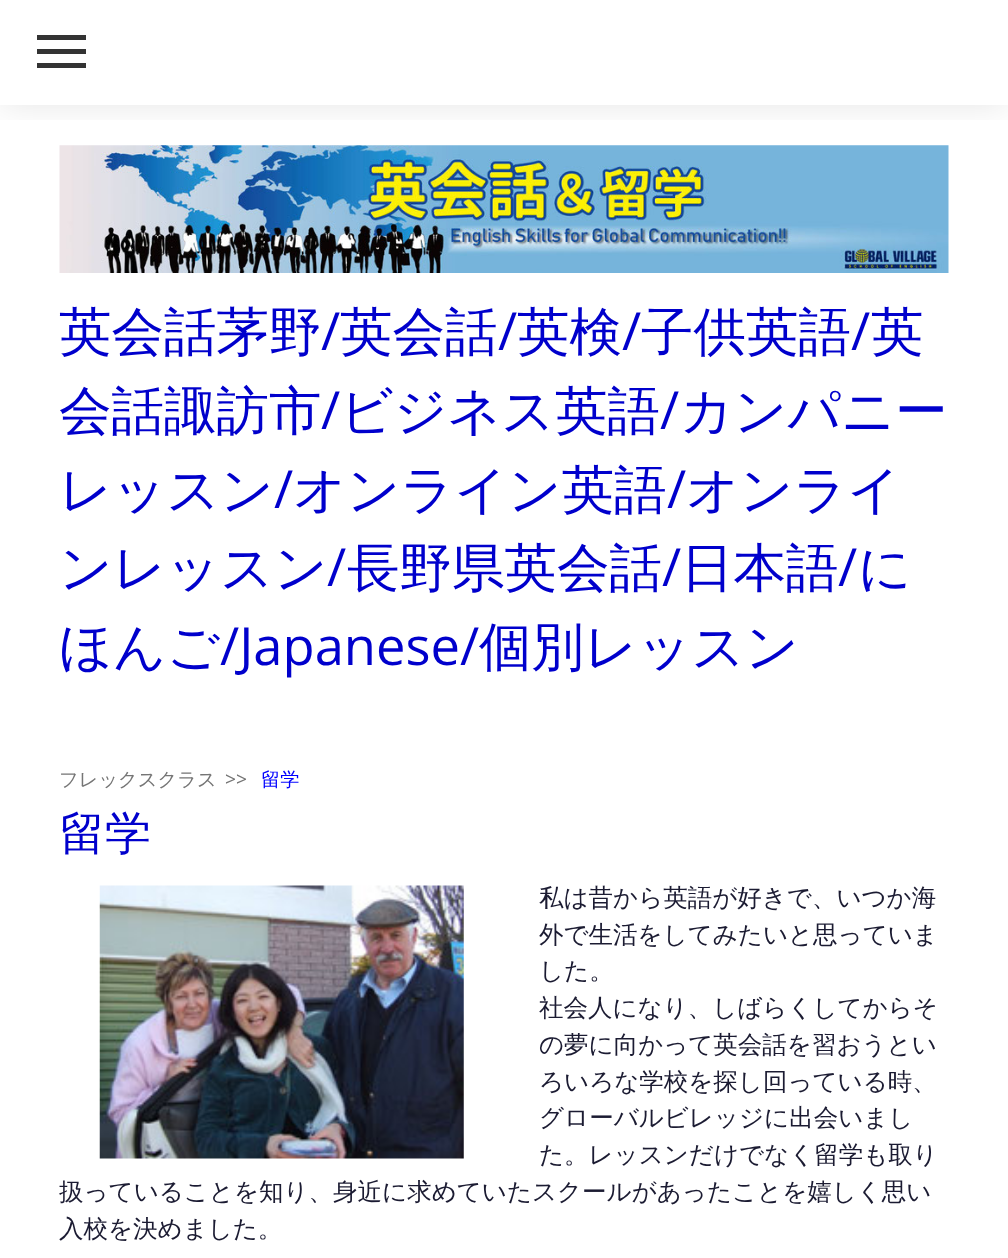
<svg xmlns="http://www.w3.org/2000/svg" width="1008" height="1258" viewBox="0 0 1008 1258">
  <defs>
    <clipPath id="clip1"><rect x="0" y="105" width="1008" height="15"/></clipPath>
  </defs>
  <rect width="100%" height="100%" fill="rgb(255,255,255)"/>
  <image x="59" y="145" width="890" height="128" href="pic1.png"/>
  <g clip-path="url(#clip1)">
    <rect x="0" y="0" width="1008" height="105" fill="rgba(0,0,0,0.1)" filter="blur(17.5px)"/>
  </g>
  <rect x="37" y="49" width="49" height="5" fill="rgb(51,51,51)"/>
  <rect x="37" y="35" width="49" height="5" fill="rgb(51,51,51)"/>
  <rect x="37" y="63" width="49" height="5" fill="rgb(51,51,51)"/>
  <text x="59" y="350" font-family="WenQuanYi Zen Hei" font-size="52.5" font-weight="500" fill="rgb(0,0,204)">英会話茅野</text>
  <text x="321" y="350" font-family="Open Sans" font-size="52.5" fill="rgb(0,0,204)">/</text>
  <text x="340" y="350" font-family="WenQuanYi Zen Hei" font-size="52.5" font-weight="500" fill="rgb(0,0,204)">英会話</text>
  <text x="498" y="350" font-family="Open Sans" font-size="52.5" fill="rgb(0,0,204)">/</text>
  <text x="517" y="350" font-family="WenQuanYi Zen Hei" font-size="52.5" font-weight="500" fill="rgb(0,0,204)">英検</text>
  <text x="622" y="350" font-family="Open Sans" font-size="52.5" fill="rgb(0,0,204)">/</text>
  <text x="641" y="350" font-family="WenQuanYi Zen Hei" font-size="52.5" font-weight="500" fill="rgb(0,0,204)">子供英語</text>
  <text x="851" y="350" font-family="Open Sans" font-size="52.5" fill="rgb(0,0,204)">/</text>
  <g font-family="WenQuanYi Zen Hei" font-size="52.5" font-weight="500" fill="rgb(0,0,204)">
    <text x="871" y="350">英</text>
    <text x="59" y="429">会話諏訪市</text>
  </g>
  <text x="321" y="429" font-family="Open Sans" font-size="52.5" fill="rgb(0,0,204)">/</text>
  <text x="340" y="429" font-family="WenQuanYi Zen Hei" font-size="52.5" font-weight="500" fill="rgb(0,0,204)">ビジネス英語</text>
  <text x="660" y="429" font-family="Open Sans" font-size="52.5" fill="rgb(0,0,204)">/</text>
  <g font-family="WenQuanYi Zen Hei" font-size="52.5" font-weight="500" fill="rgb(0,0,204)">
    <text x="680" y="429">カンパニー</text>
    <text x="59" y="508">レッスン</text>
  </g>
  <text x="274" y="508" font-family="Open Sans" font-size="52.5" fill="rgb(0,0,204)">/</text>
  <text x="293" y="508" font-family="WenQuanYi Zen Hei" font-size="52.5" font-weight="500" fill="rgb(0,0,204)">オンライン英語</text>
  <text x="667" y="508" font-family="Open Sans" font-size="52.5" fill="rgb(0,0,204)">/</text>
  <g font-family="WenQuanYi Zen Hei" font-size="52.5" font-weight="500" fill="rgb(0,0,204)">
    <text x="686" y="508">オンライ</text>
    <text x="59" y="586">ンレッスン</text>
  </g>
  <text x="327" y="586" font-family="Open Sans" font-size="52.5" fill="rgb(0,0,204)">/</text>
  <text x="347" y="586" font-family="WenQuanYi Zen Hei" font-size="52.5" font-weight="500" fill="rgb(0,0,204)">長野県英会話</text>
  <text x="662" y="586" font-family="Open Sans" font-size="52.5" fill="rgb(0,0,204)">/</text>
  <text x="681" y="586" font-family="WenQuanYi Zen Hei" font-size="52.5" font-weight="500" fill="rgb(0,0,204)">日本語</text>
  <text x="838" y="586" font-family="Open Sans" font-size="52.5" fill="rgb(0,0,204)">/</text>
  <g font-family="WenQuanYi Zen Hei" font-size="52.5" font-weight="500" fill="rgb(0,0,204)">
    <text x="858" y="586">に</text>
    <text x="59" y="665">ほんご</text>
  </g>
  <text x="220" y="665" font-family="Open Sans" font-size="52.5" fill="rgb(0,0,204)">/Japanese/</text>
  <text x="479" y="665" font-family="WenQuanYi Zen Hei" font-size="52.5" font-weight="500" fill="rgb(0,0,204)">個別レッスン</text>
  <text x="59" y="786" font-family="WenQuanYi Zen Hei" font-size="19.25" font-weight="500" fill="rgb(117,117,117)">フレックスクラス</text>
  <text x="225" y="786" font-family="Open Sans" font-size="19.25" fill="rgb(117,117,117)">&gt;&gt;</text>
  <text x="261" y="786" font-family="WenQuanYi Zen Hei" font-size="19.25" font-weight="500" fill="rgb(0,0,255)">留学</text>
  <text x="59" y="849" font-family="WenQuanYi Zen Hei" font-size="46" font-weight="500" fill="rgb(0,0,204)">留学</text>
  <g font-family="WenQuanYi Zen Hei" font-size="24.5" font-weight="500" fill="rgb(27,27,50)">
    <text>
      <tspan x="539" y="906">私は昔から英語が好きで、いつか海</tspan>
      <tspan x="539" y="943">外で生活をしてみたいと思っていま</tspan>
      <tspan x="539" y="979">した。</tspan>
      <tspan x="539" y="1016">社会人になり、しばらくしてからそ</tspan>
      <tspan x="539" y="1053">の夢に向かって英会話を習おうとい</tspan>
      <tspan x="539" y="1090">ろいろな学校を探し回っている時、</tspan>
      <tspan x="539" y="1126">グローバルビレッジに出会いまし</tspan>
      <tspan x="539" y="1163">た。レッスンだけでなく留学も取り</tspan>
    </text>
    <text>
      <tspan x="59" y="1200">扱っていることを知り、身近に求めていたスクールがあったことを嬉しく思い</tspan>
      <tspan x="59" y="1237">入校を決めました。</tspan>
    </text>
  </g>
  <image x="99" y="885" width="365" height="274" href="pic2.png"/>
</svg>
